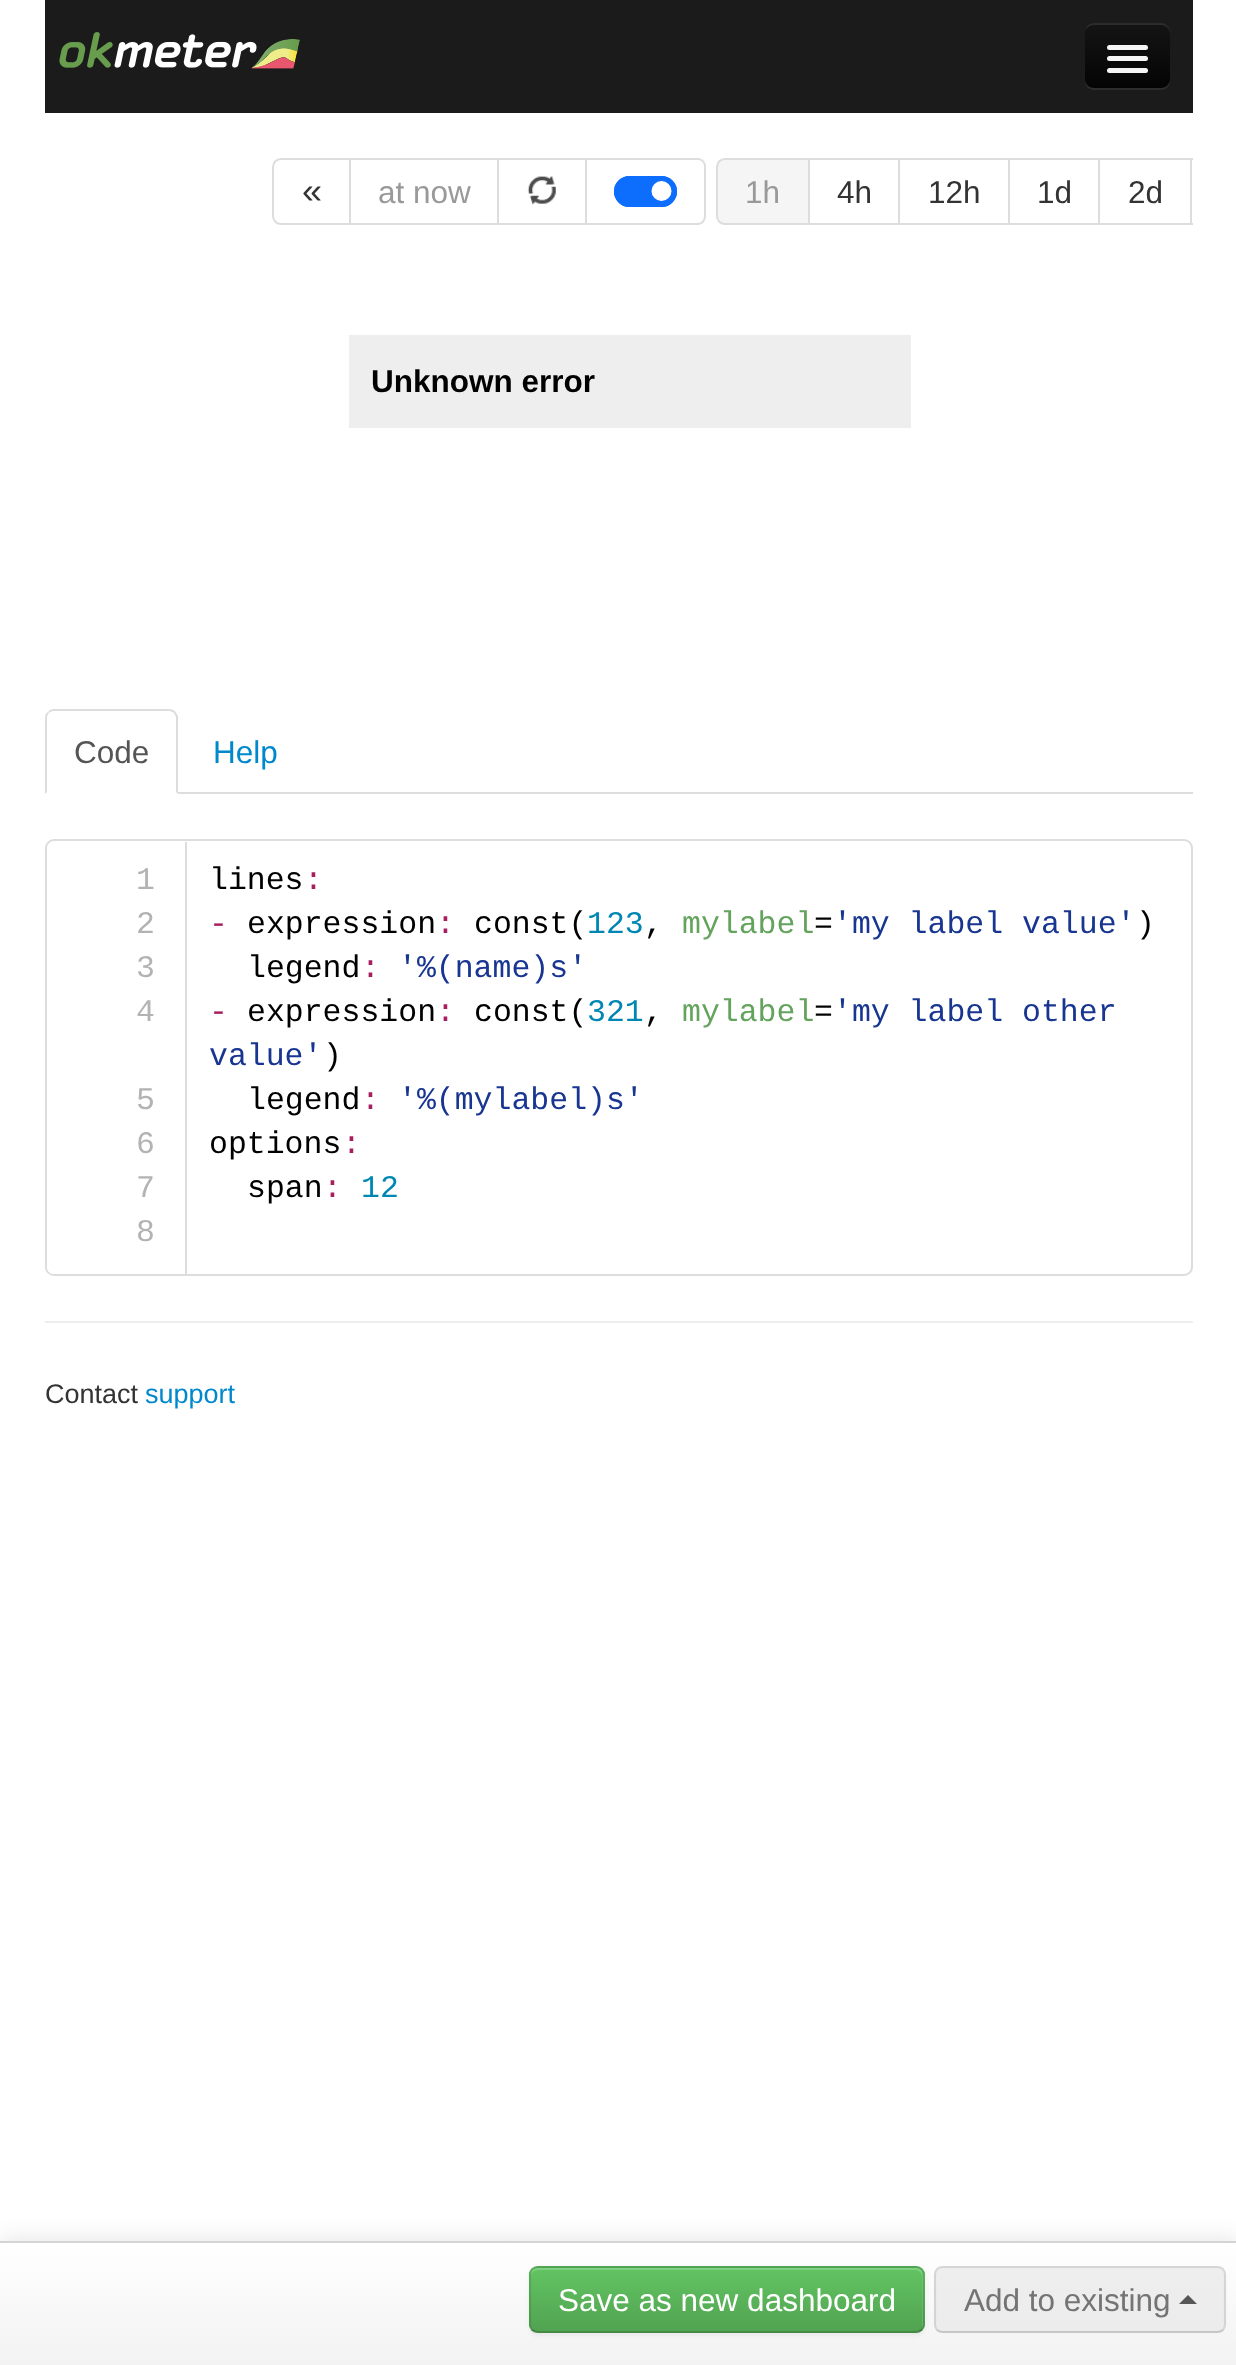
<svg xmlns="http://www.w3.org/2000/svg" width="1236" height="2365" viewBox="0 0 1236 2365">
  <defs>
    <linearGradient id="g1" gradientUnits="userSpaceOnUse" x1="1127" y1="22" x2="1127" y2="88"><stop offset="0" stop-color="rgb(21,21,21)"/><stop offset="1" stop-color="rgb(4,4,4)"/></linearGradient>
    <linearGradient id="g2" gradientUnits="userSpaceOnUse" x1="619" y1="2243" x2="619" y2="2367"><stop offset="0" stop-color="rgb(255,255,255)"/><stop offset="1" stop-color="rgb(242,242,242)"/></linearGradient>
    <clipPath id="clip1"><rect x="529" y="2266" width="396" height="67" rx="9"/></clipPath>
    <linearGradient id="g3" gradientUnits="userSpaceOnUse" x1="727" y1="2268" x2="727" y2="2331"><stop offset="0" stop-color="rgb(98,196,98)"/><stop offset="1" stop-color="rgb(81,163,81)"/></linearGradient>
  </defs>
  <rect width="100%" height="100%" fill="rgb(255,255,255)"/>
  <rect x="45" y="0" width="1148" height="113" fill="rgb(27,27,27)"/>
  <image x="59" y="32" width="241" height="37" href="pic1.png"/>
  <path d="M1085 82C1085 86 1089 90 1094 90H1161C1166 90 1170 86 1170 81V79C1170 84 1166 88 1161 88H1094C1090 88 1086 85 1085 82Z" fill="rgb(45,45,45)"/>
  <rect x="1085" y="23" width="85" height="65" rx="9" fill="url(#g1)"/>
  <path d="M1094 25H1161C1166 25 1170 29 1170 34V32C1170 27 1166 23 1161 23H1094C1090 23 1086 26 1085 30C1087 27 1091 25 1094 25Z" fill="rgb(44,44,44)"/>
  <path d="M1107 48C1105 53 1115 52 1116 52H1140C1141 52 1147 53 1148 50L1147 48C1147 49 1146 50 1145 50H1109C1108 50 1108 49 1107 48Z" fill="rgb(10,10,10)"/>
  <rect x="1107" y="45" width="41" height="5" rx="2.5" fill="rgb(245,245,245)"/>
  <path d="M1108 60C1104 65 1115 64 1116 64H1128C1131 64 1145 65 1147 63C1148 62 1148 61 1147 60L1146 61H1109Z" fill="rgb(8,8,8)"/>
  <rect x="1107" y="56" width="41" height="5" rx="2.5" fill="rgb(245,245,245)"/>
  <rect x="1107" y="68" width="41" height="5" rx="2.5" fill="rgb(245,245,245)"/>
  <path d="M281 159H350V224H281C276.5 224 273 220.5 273 216V167C273 162.5 276.5 159 281 159Z" fill="none" stroke="rgb(221,221,221)" stroke-width="2"/>
  <text x="302" y="203" font-family="Liberation Sans" font-size="36" fill="rgb(51,51,51)">«</text>
  <rect x="351" y="158" width="236" height="2" fill="rgb(221,221,221)"/>
  <rect x="497" y="158" width="2" height="67" fill="rgb(221,221,221)"/>
  <rect x="351" y="223" width="149" height="2" fill="rgb(221,221,221)"/>
  <text x="378" y="203" font-family="Liberation Sans" font-size="31.5" fill="rgb(153,153,153)">at now</text>
  <rect x="585" y="158" width="2" height="67" fill="rgb(221,221,221)"/>
  <rect x="500" y="223" width="87" height="2" fill="rgb(221,221,221)"/>
  <image x="527" y="175" width="29" height="30" href="pic2.png"/>
  <path d="M587 158H698C702 158 706 162 706 166V216C706 221 702 225 698 225H587ZM587 160H698C701 160 704 163 704 166V216C704 220 701 223 698 223H587Z" fill="rgb(221,221,221)" fill-rule="evenodd"/>
  <rect x="614" y="176" width="63" height="31" rx="15.5" fill="rgb(13,110,253)"/>
  <circle cx="661.5" cy="191" r="10" fill="rgb(255,255,255)"/>
  <rect x="615" y="177" width="61" height="29" rx="14.5" fill="none" stroke="rgb(13,110,253)" stroke-width="2"/>
  <path d="M725 159H809V224H725C720.5 224 717 220.5 717 216V167C717 162.5 720.5 159 725 159Z" fill="rgb(245,245,245)" stroke="rgb(221,221,221)" stroke-width="2"/>
  <text x="745" y="203" font-family="Liberation Sans" font-size="31.5" fill="rgb(153,153,153)">1h</text>
  <rect x="810" y="158" width="383" height="2" fill="rgb(221,221,221)"/>
  <rect x="898" y="158" width="2" height="67" fill="rgb(221,221,221)"/>
  <rect x="810" y="223" width="90" height="2" fill="rgb(221,221,221)"/>
  <text x="837" y="203" font-family="Liberation Sans" font-size="31.5" fill="rgb(51,51,51)">4h</text>
  <rect x="1008" y="158" width="2" height="67" fill="rgb(221,221,221)"/>
  <rect x="900" y="223" width="110" height="2" fill="rgb(221,221,221)"/>
  <text x="928" y="203" font-family="Liberation Sans" font-size="31.5" fill="rgb(51,51,51)">12h</text>
  <rect x="1098" y="158" width="2" height="67" fill="rgb(221,221,221)"/>
  <rect x="1010" y="223" width="90" height="2" fill="rgb(221,221,221)"/>
  <text x="1037" y="203" font-family="Liberation Sans" font-size="31.5" fill="rgb(51,51,51)">1d</text>
  <rect x="1190" y="158" width="2" height="67" fill="rgb(221,221,221)"/>
  <rect x="1100" y="223" width="93" height="2" fill="rgb(221,221,221)"/>
  <text x="1128" y="203" font-family="Liberation Sans" font-size="31.5" fill="rgb(51,51,51)">2d</text>
  <rect x="349" y="335" width="562" height="93" fill="rgb(238,238,238)"/>
  <text x="371" y="392" font-family="Liberation Sans" font-size="31.5" font-weight="bold" fill="rgb(0,0,0)">Unknown error</text>
  <rect x="178" y="792" width="1015" height="2" fill="rgb(221,221,221)"/>
  <path d="M54 709C52 709 49 710 48 712L49 713C50 712 52 711 53 711H170L174 713L175 711C174 710 171 709 169 709Z" fill="rgb(221,221,221)"/>
  <path d="M175 711C176 713 177 714 178 716V794L176 792V717L174 713Z" fill="rgb(221,221,221)"/>
  <path d="M45 718V794L47 792V718C47 716 48 714 49 713L48 712C46 713 45 715 45 718Z" fill="rgb(221,221,221)"/>
  <text x="74" y="763" font-family="Liberation Sans" font-size="31.5" fill="rgb(85,85,85)">Code</text>
  <text x="213" y="763" font-family="Liberation Sans" font-size="31.5" fill="rgb(0,136,204)">Help</text>
  <rect x="46" y="840" width="1146" height="435" rx="8" fill="none" stroke="rgb(221,221,221)" stroke-width="2"/>
  <path d="M54 842H187V1274H54C50 1274 47 1271 47 1267V849C47 845 50 842 54 842Z" fill="rgb(255,255,255)"/>
  <rect x="185" y="842" width="2" height="432" fill="rgb(221,221,221)"/>
  <text x="136" y="889" font-family="Liberation Mono" font-size="31.5" fill="rgb(179,179,179)">1</text>
  <text x="209" y="889" font-family="Liberation Mono" font-size="31.5" fill="rgb(0,0,0)">lines</text>
  <text x="304" y="889" font-family="Liberation Mono" font-size="31.5" fill="rgb(167,29,93)">:</text>
  <text x="136" y="933" font-family="Liberation Mono" font-size="31.5" fill="rgb(179,179,179)">2</text>
  <text x="209" y="933" font-family="Liberation Mono" font-size="31.5" fill="rgb(167,29,93)">-</text>
  <text x="247" y="933" font-family="Liberation Mono" font-size="31.5" fill="rgb(0,0,0)">expression</text>
  <text x="436" y="933" font-family="Liberation Mono" font-size="31.5" fill="rgb(167,29,93)">:</text>
  <text x="474" y="933" font-family="Liberation Mono" font-size="31.5" fill="rgb(0,0,0)">const(</text>
  <text x="587" y="933" font-family="Liberation Mono" font-size="31.5" fill="rgb(0,134,179)">123</text>
  <text x="682" y="933" font-family="Liberation Mono" font-size="31.5" fill="rgb(99,163,92)">mylabel</text>
  <text x="814" y="933" font-family="Liberation Mono" font-size="31.5" fill="rgb(0,0,0)">=</text>
  <text x="833" y="933" font-family="Liberation Mono" font-size="31.5" fill="rgb(24,54,145)">'my label value'</text>
  <g font-family="Liberation Mono" font-size="31.5" fill="rgb(0,0,0)">
    <text x="1136" y="933">)</text>
    <text x="644" y="933">,</text>
  </g>
  <text x="136" y="977" font-family="Liberation Mono" font-size="31.5" fill="rgb(179,179,179)">3</text>
  <text x="247" y="977" font-family="Liberation Mono" font-size="31.5" fill="rgb(0,0,0)">legend</text>
  <text x="361" y="977" font-family="Liberation Mono" font-size="31.5" fill="rgb(167,29,93)">:</text>
  <text x="398" y="977" font-family="Liberation Mono" font-size="31.5" fill="rgb(24,54,145)">'%(name)s'</text>
  <text x="136" y="1021" font-family="Liberation Mono" font-size="31.5" fill="rgb(179,179,179)">4</text>
  <text x="209" y="1021" font-family="Liberation Mono" font-size="31.5" fill="rgb(167,29,93)">-</text>
  <text x="247" y="1021" font-family="Liberation Mono" font-size="31.5" fill="rgb(0,0,0)">expression</text>
  <text x="436" y="1021" font-family="Liberation Mono" font-size="31.5" fill="rgb(167,29,93)">:</text>
  <text x="474" y="1021" font-family="Liberation Mono" font-size="31.5" fill="rgb(0,0,0)">const(</text>
  <text x="587" y="1021" font-family="Liberation Mono" font-size="31.5" fill="rgb(0,134,179)">321</text>
  <text x="682" y="1021" font-family="Liberation Mono" font-size="31.5" fill="rgb(99,163,92)">mylabel</text>
  <text x="814" y="1021" font-family="Liberation Mono" font-size="31.5" fill="rgb(0,0,0)">=</text>
  <text x="833" y="1021" font-family="Liberation Mono" font-size="31.5" fill="rgb(24,54,145)">'my label other</text>
  <text x="644" y="1021" font-family="Liberation Mono" font-size="31.5" fill="rgb(0,0,0)">,</text>
  <text x="209" y="1065" font-family="Liberation Mono" font-size="31.5" fill="rgb(24,54,145)">value'</text>
  <text x="323" y="1065" font-family="Liberation Mono" font-size="31.5" fill="rgb(0,0,0)">)</text>
  <text x="136" y="1109" font-family="Liberation Mono" font-size="31.5" fill="rgb(179,179,179)">5</text>
  <text x="247" y="1109" font-family="Liberation Mono" font-size="31.5" fill="rgb(0,0,0)">legend</text>
  <text x="361" y="1109" font-family="Liberation Mono" font-size="31.5" fill="rgb(167,29,93)">:</text>
  <text x="398" y="1109" font-family="Liberation Mono" font-size="31.5" fill="rgb(24,54,145)">'%(mylabel)s'</text>
  <text x="136" y="1153" font-family="Liberation Mono" font-size="31.5" fill="rgb(179,179,179)">6</text>
  <text x="209" y="1153" font-family="Liberation Mono" font-size="31.5" fill="rgb(0,0,0)">options</text>
  <text x="342" y="1153" font-family="Liberation Mono" font-size="31.5" fill="rgb(167,29,93)">:</text>
  <text x="136" y="1197" font-family="Liberation Mono" font-size="31.5" fill="rgb(179,179,179)">7</text>
  <text x="247" y="1197" font-family="Liberation Mono" font-size="31.5" fill="rgb(0,0,0)">span</text>
  <text x="323" y="1197" font-family="Liberation Mono" font-size="31.5" fill="rgb(167,29,93)">:</text>
  <text x="361" y="1197" font-family="Liberation Mono" font-size="31.5" fill="rgb(0,134,179)">12</text>
  <text x="136" y="1241" font-family="Liberation Mono" font-size="31.5" fill="rgb(179,179,179)">8</text>
  <rect x="45" y="1321" width="1148" height="2" fill="rgb(238,238,238)"/>
  <text x="45" y="1403" font-family="Liberation Sans" font-size="27" fill="rgb(51,51,51)">Contact</text>
  <text x="145" y="1403" font-family="Liberation Sans" font-size="27" fill="rgb(0,136,204)">support</text>
  <rect x="0" y="2239" width="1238" height="126" fill="rgba(0,0,0,0.1)" filter="blur(11px)"/>
  <rect x="0" y="2243" width="1236" height="122" fill="url(#g2)"/>
  <rect x="0" y="2241" width="1236" height="2" fill="rgb(212,212,212)"/>
  <rect x="529" y="2268" width="396" height="68" rx="9" fill="rgba(0,0,0,0.05)" filter="blur(2px)"/>
  <rect x="529" y="2266" width="396" height="67" rx="9" fill="rgb(91,183,91)"/>
  <g clip-path="url(#clip1)">
    <rect x="529" y="2268" width="396" height="63" fill="url(#g3)"/>
  </g>
  <path d="M538 2270H916C919 2270 922 2273 922 2277V2328C923 2327 923 2325 923 2324V2275C923 2271 920 2268 916 2268H538C534 2268 531 2271 531 2275V2277C531 2273 534 2270 538 2270Z" fill="rgba(255,255,255,0.2)"/>
  <path d="M921.5 2330C920 2331.5 918 2332 916 2332H538C535.5 2332 533.5 2331.5 532 2330" fill="none" stroke="rgba(0,0,0,0.25)" stroke-width="2.2"/>
  <path d="M532 2330C530.5 2328.5 530 2326.5 530 2324V2275C530 2272.5 530.5 2270.5 532 2269C533.5 2267.5 535.5 2267 538 2267H916C918 2267 920 2267.5 921.5 2269C923 2270.5 923.5 2272.5 923.5 2275V2324C923.5 2326.5 923 2328.5 921.5 2330" fill="none" stroke="rgba(0,0,0,0.1)" stroke-width="2.2"/>
  <text x="558" y="2311" font-family="Liberation Sans" font-size="31.5" fill="rgb(255,255,255)">Save as new dashboard</text>
  <rect x="934" y="2266" width="292" height="67" rx="9" fill="rgba(230,230,230,0.65)"/>
  <path d="M1223 2330C1221.5 2331.5 1219.5 2332 1217 2332H943C940.5 2332 938.5 2331.5 937 2330" fill="none" stroke="rgba(86,86,86,0.25)" stroke-width="2.2"/>
  <path d="M937 2330C935.5 2328.5 935 2326.5 935 2324V2275C935 2272.5 935.5 2270.5 937 2269C938.5 2267.5 940.5 2267 943 2267H1217C1219.5 2267 1221.5 2267.5 1223 2269C1224.5 2270.5 1225 2272.5 1225 2275V2324C1225 2326.5 1224.5 2328.5 1223 2330" fill="none" stroke="rgba(0,0,0,0.1)" stroke-width="2.2"/>
  <text x="964" y="2311" font-family="Liberation Sans" font-size="31.5" fill="rgb(116,116,116)">Add to existing</text>
  <path d="M1197 2304H1179L1188 2295Z" fill="rgb(87,87,87)"/>
</svg>
